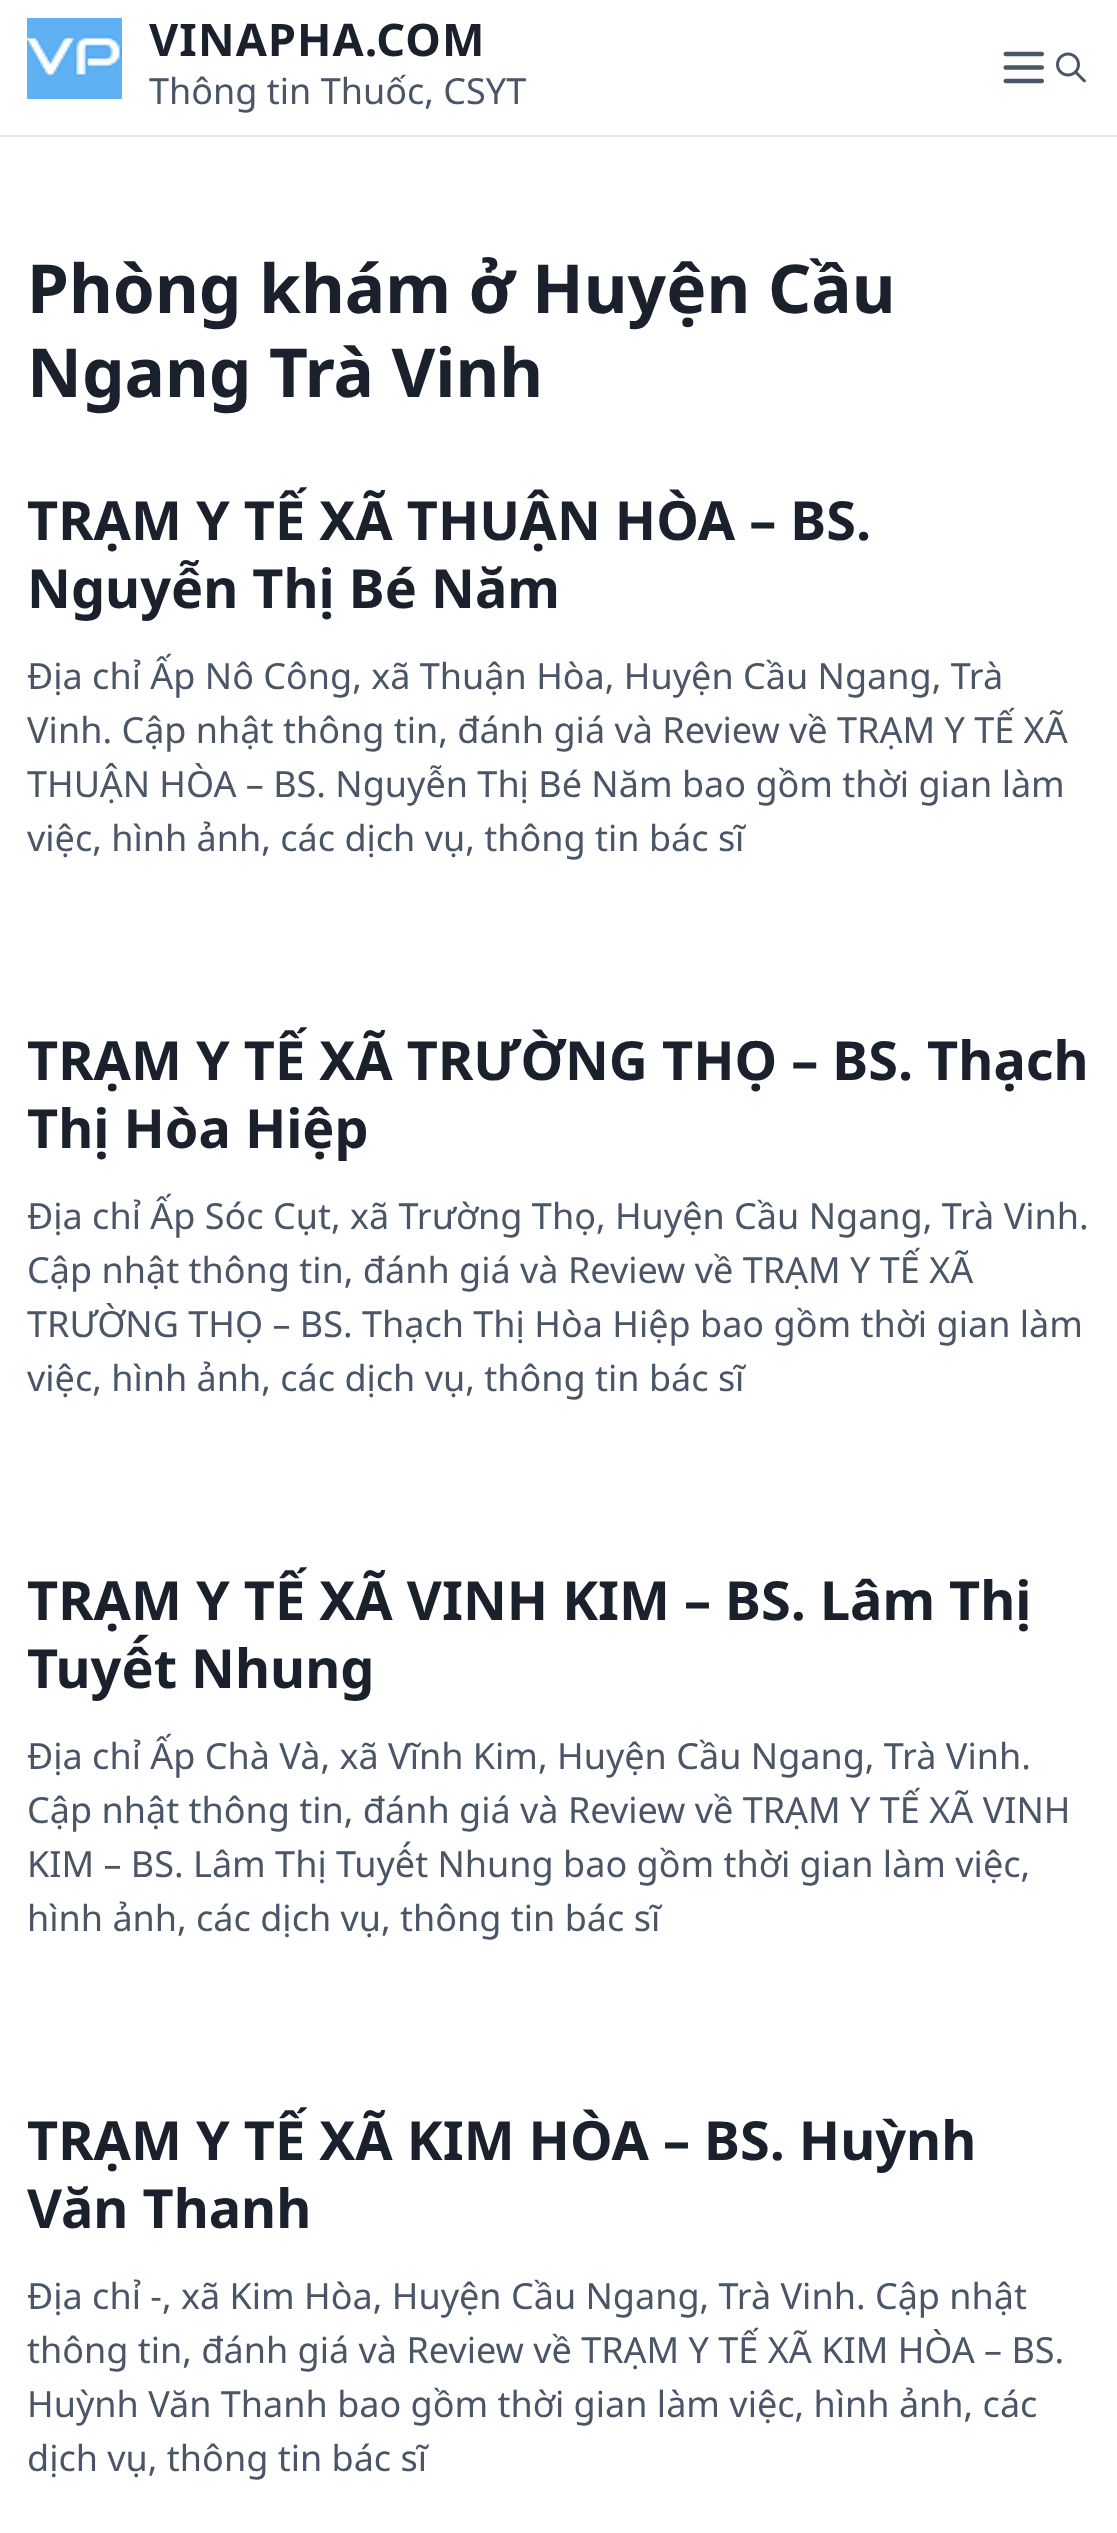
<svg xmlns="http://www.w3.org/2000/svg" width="1117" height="2533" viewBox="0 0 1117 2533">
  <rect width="100%" height="100%" fill="rgb(255,255,255)"/>
  <rect x="0" y="135" width="1117" height="2" fill="rgb(226,232,240)"/>
  <image x="27" y="18" width="95" height="81" href="pic1.png"/>
  <text x="149" y="56" font-family="Noto Sans" font-size="45" font-weight="bold" letter-spacing="1.1" fill="rgb(26,32,44)">VINAPHA.COM</text>
  <text x="149" y="104" font-family="Noto Sans" font-size="36" fill="rgb(74,85,104)">Thông tin Thuốc, CSYT</text>
  <image x="1003" y="51" width="41" height="33" href="pic2.png"/>
  <image x="1056" y="52" width="30" height="31" href="pic3.png"/>
  <g font-family="Noto Sans" font-size="67.5" font-weight="bold" fill="rgb(26,32,44)">
    <text>
      <tspan x="27" y="313">Phòng khám ở Huyện Cầu</tspan>
      <tspan x="27" y="397">Ngang Trà Vinh</tspan>
    </text>
  </g>
  <g font-family="Noto Sans" font-size="54" font-weight="bold" fill="rgb(26,32,44)">
    <text>
      <tspan x="27" y="540">TRẠM Y TẾ XÃ THUẬN HÒA – BS.</tspan>
      <tspan x="27" y="608">Nguyễn Thị Bé Năm</tspan>
    </text>
  </g>
  <g font-family="Noto Sans" font-size="36" fill="rgb(74,85,104)">
    <text>
      <tspan x="27" y="689">Địa chỉ Ấp Nô Công, xã Thuận Hòa, Huyện Cầu Ngang, Trà</tspan>
      <tspan x="27" y="743">Vinh. Cập nhật thông tin, đánh giá và Review về TRẠM Y TẾ XÃ</tspan>
      <tspan x="27" y="797">THUẬN HÒA – BS. Nguyễn Thị Bé Năm bao gồm thời gian làm</tspan>
      <tspan x="27" y="851">việc, hình ảnh, các dịch vụ, thông tin bác sĩ</tspan>
    </text>
  </g>
  <g font-family="Noto Sans" font-size="54" font-weight="bold" fill="rgb(26,32,44)">
    <text>
      <tspan x="27" y="1080">TRẠM Y TẾ XÃ TRƯỜNG THỌ – BS. Thạch</tspan>
      <tspan x="27" y="1148">Thị Hòa Hiệp</tspan>
    </text>
  </g>
  <g font-family="Noto Sans" font-size="36" fill="rgb(74,85,104)">
    <text>
      <tspan x="27" y="1229">Địa chỉ Ấp Sóc Cụt, xã Trường Thọ, Huyện Cầu Ngang, Trà Vinh.</tspan>
      <tspan x="27" y="1283">Cập nhật thông tin, đánh giá và Review về TRẠM Y TẾ XÃ</tspan>
      <tspan x="27" y="1337">TRƯỜNG THỌ – BS. Thạch Thị Hòa Hiệp bao gồm thời gian làm</tspan>
      <tspan x="27" y="1391">việc, hình ảnh, các dịch vụ, thông tin bác sĩ</tspan>
    </text>
  </g>
  <g font-family="Noto Sans" font-size="54" font-weight="bold" fill="rgb(26,32,44)">
    <text>
      <tspan x="27" y="1620">TRẠM Y TẾ XÃ VINH KIM – BS. Lâm Thị</tspan>
      <tspan x="27" y="1688">Tuyết Nhung</tspan>
    </text>
  </g>
  <g font-family="Noto Sans" font-size="36" fill="rgb(74,85,104)">
    <text>
      <tspan x="27" y="1769">Địa chỉ Ấp Chà Và, xã Vĩnh Kim, Huyện Cầu Ngang, Trà Vinh.</tspan>
      <tspan x="27" y="1823">Cập nhật thông tin, đánh giá và Review về TRẠM Y TẾ XÃ VINH</tspan>
      <tspan x="27" y="1877">KIM – BS. Lâm Thị Tuyết Nhung bao gồm thời gian làm việc,</tspan>
      <tspan x="27" y="1931">hình ảnh, các dịch vụ, thông tin bác sĩ</tspan>
    </text>
  </g>
  <g font-family="Noto Sans" font-size="54" font-weight="bold" fill="rgb(26,32,44)">
    <text>
      <tspan x="27" y="2160">TRẠM Y TẾ XÃ KIM HÒA – BS. Huỳnh</tspan>
      <tspan x="27" y="2228">Văn Thanh</tspan>
    </text>
  </g>
  <g font-family="Noto Sans" font-size="36" fill="rgb(74,85,104)">
    <text>
      <tspan x="27" y="2309">Địa chỉ -, xã Kim Hòa, Huyện Cầu Ngang, Trà Vinh. Cập nhật</tspan>
      <tspan x="27" y="2363">thông tin, đánh giá và Review về TRẠM Y TẾ XÃ KIM HÒA – BS.</tspan>
      <tspan x="27" y="2417">Huỳnh Văn Thanh bao gồm thời gian làm việc, hình ảnh, các</tspan>
      <tspan x="27" y="2471">dịch vụ, thông tin bác sĩ</tspan>
    </text>
  </g>
</svg>
